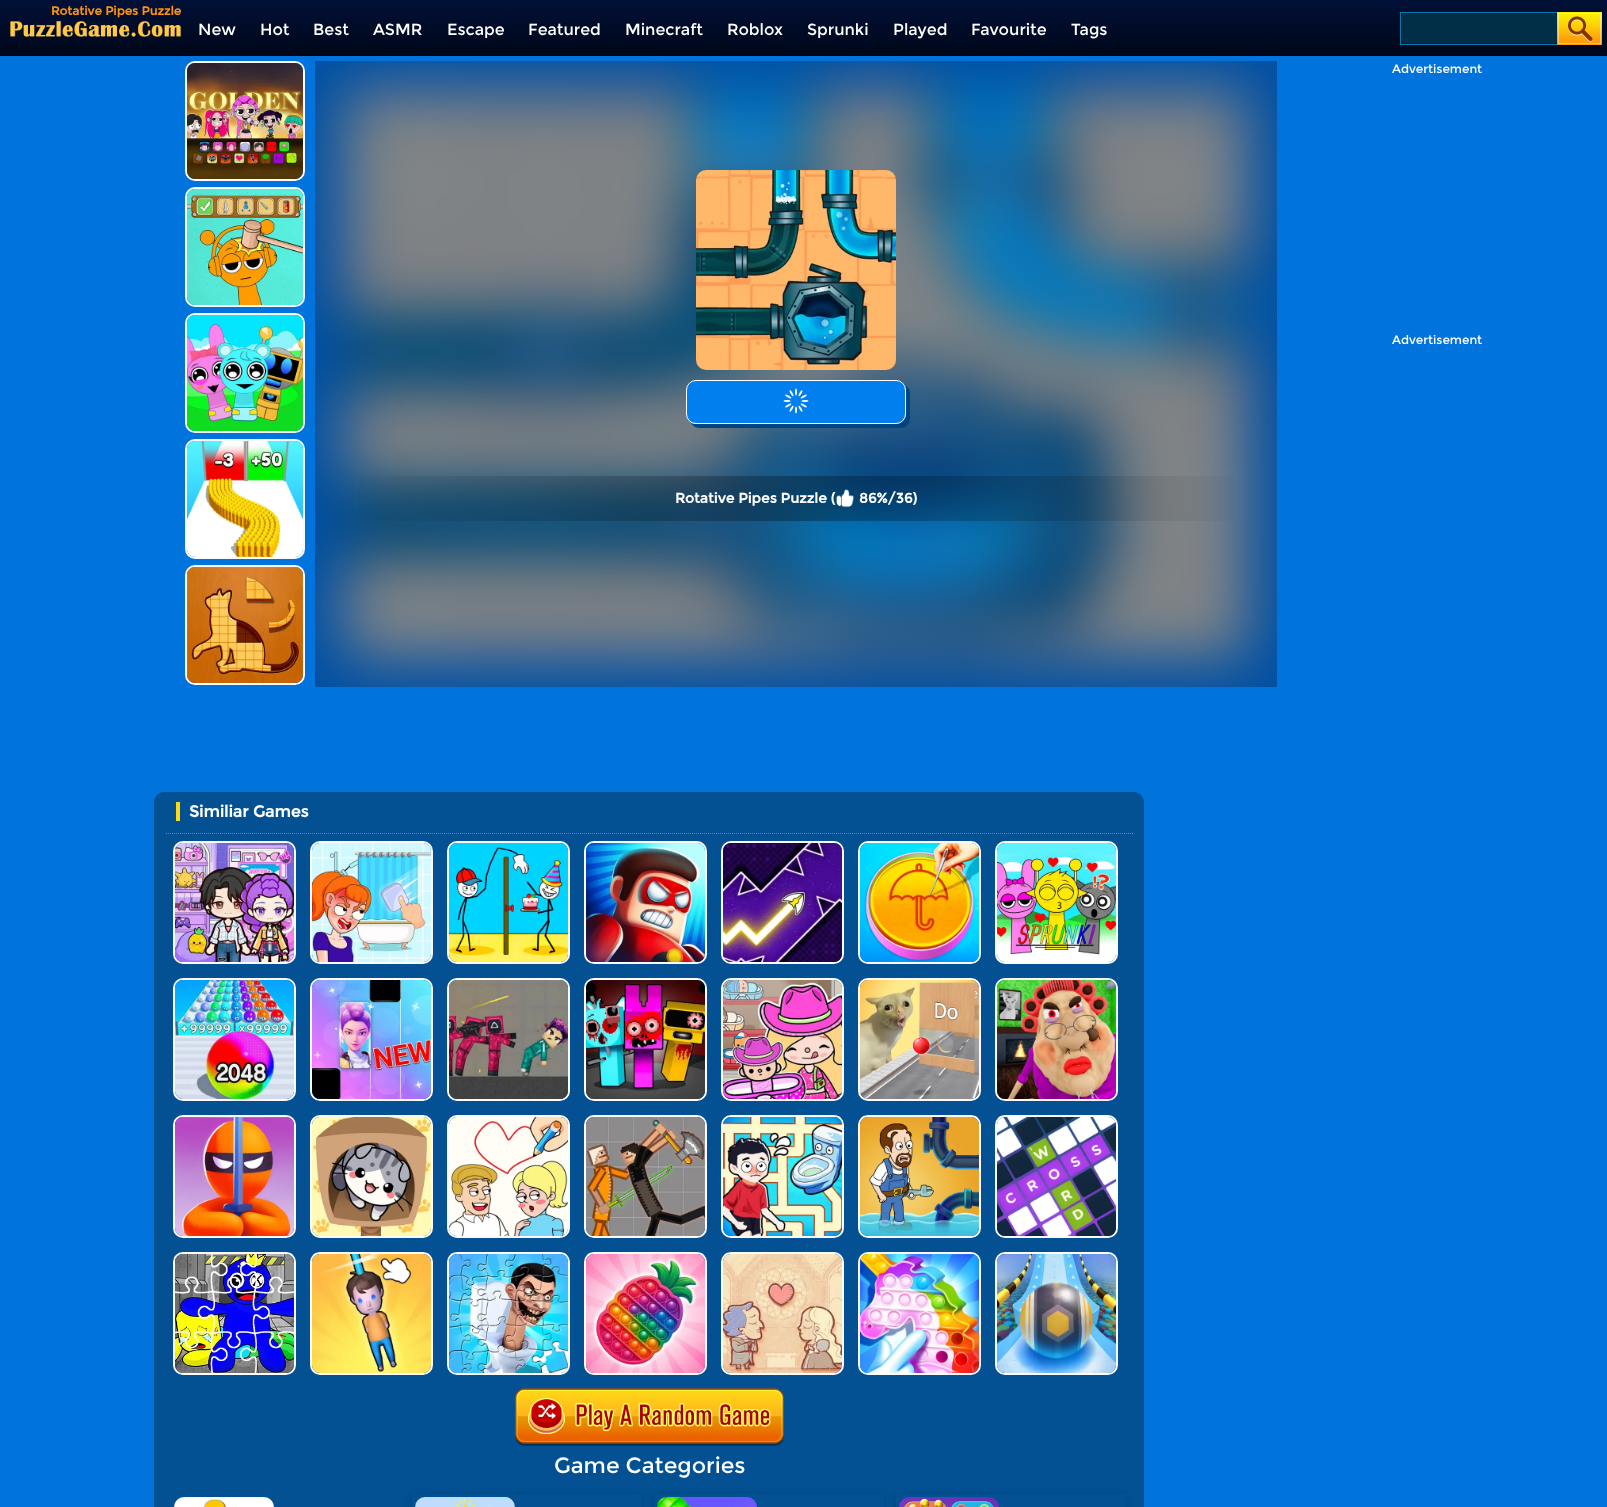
<svg xmlns="http://www.w3.org/2000/svg" width="1607" height="1507" viewBox="0 0 1607 1507">
  <defs>
    <linearGradient id="g1" gradientUnits="userSpaceOnUse" x1="804" y1="0" x2="804" y2="55"><stop offset="0" stop-color="rgb(0,16,55)"/><stop offset="1" stop-color="rgb(0,7,25)"/></linearGradient>
    <linearGradient id="g2" gradientUnits="userSpaceOnUse" x1="325" y1="499" x2="1267" y2="498"><stop offset="0" stop-color="rgb(0,0,0)" stop-opacity="0"/><stop offset="0.5" stop-color="rgb(0,0,0)" stop-opacity="0.3"/><stop offset="1" stop-color="rgb(0,0,0)" stop-opacity="0"/></linearGradient>
    <clipPath id="clip1"><path d="M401 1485H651V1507H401ZM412 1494H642V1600H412Z" clip-rule="evenodd"/></clipPath>
    <clipPath id="clip2"><path d="M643 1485H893V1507H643ZM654 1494H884V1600H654Z" clip-rule="evenodd"/></clipPath>
    <clipPath id="clip3"><path d="M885 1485H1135V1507H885ZM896 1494H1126V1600H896Z" clip-rule="evenodd"/></clipPath>
  </defs>
  <rect width="100%" height="100%" fill="rgb(0,115,221)"/>
  <rect x="0" y="0" width="1607" height="55" fill="url(#g1)"/>
  <rect x="0" y="55" width="1607" height="1" fill="rgb(0,0,0)"/>
  <text x="51" y="15" font-family="Montserrat" font-size="12" font-weight="bold" fill="rgb(254,146,12)">Rotative Pipes Puzzle</text>
  <image x="10" y="21" width="171" height="16" href="pic1.png"/>
  <g font-family="Montserrat" font-size="16" fill="rgb(255,255,255)">
    <text x="198" y="35">New</text>
    <text x="260" y="35">Hot</text>
    <text x="313" y="35">Best</text>
    <text x="373" y="35">ASMR</text>
    <text x="447" y="35">Escape</text>
    <text x="528" y="35">Featured</text>
    <text x="625" y="35">Minecraft</text>
    <text x="727" y="35">Roblox</text>
    <text x="807" y="35">Sprunki</text>
    <text x="893" y="35">Played</text>
    <text x="971" y="35">Favourite</text>
    <text x="1071" y="35">Tags</text>
  </g>
  <image x="1400" y="12" width="202" height="33" href="pic2.png"/>
  <g font-family="Montserrat" font-size="12" fill="rgb(255,255,255)">
    <text x="1392" y="73">Advertisement</text>
    <text x="1392" y="344">Advertisement</text>
  </g>
  <rect x="186" y="62" width="118" height="118" rx="9" fill="none" stroke="rgb(250,250,250)" stroke-width="2"/>
  <image x="187" y="63" width="116" height="116" href="pic3.png"/>
  <rect x="186" y="188" width="118" height="118" rx="9" fill="none" stroke="rgb(250,250,250)" stroke-width="2"/>
  <image x="187" y="189" width="116" height="116" href="pic4.png"/>
  <rect x="186" y="314" width="118" height="118" rx="9" fill="none" stroke="rgb(250,250,250)" stroke-width="2"/>
  <image x="187" y="315" width="116" height="116" href="pic5.png"/>
  <rect x="186" y="440" width="118" height="118" rx="9" fill="none" stroke="rgb(250,250,250)" stroke-width="2"/>
  <image x="187" y="441" width="116" height="116" href="pic6.png"/>
  <rect x="186" y="566" width="118" height="118" rx="9" fill="none" stroke="rgb(250,250,250)" stroke-width="2"/>
  <image x="187" y="567" width="116" height="116" href="pic7.png"/>
  <rect x="315" y="61" width="962" height="626" fill="rgb(0,80,164)"/>
  <image x="315" y="61" width="962" height="626" href="pic8.png"/>
  <image x="696" y="170" width="200" height="200" href="pic9.png"/>
  <path d="M691 423C693 426 696 428 700 428H900C906 428 910 424 910 418V394C910 390 908 387 905 385C906 387 906 388 906 390V414C906 420 902 424 896 424H696C694 424 693 424 691 423Z" fill="rgb(0,68,128)"/>
  <rect x="686.5" y="380.5" width="219" height="43" rx="9.5" fill="rgb(2,127,238)" stroke="rgb(255,255,255)"/>
  <image x="783" y="388" width="26" height="26" href="pic10.png"/>
  <rect x="359" y="476" width="874" height="45" fill="url(#g2)"/>
  <text x="675" y="503" font-family="Montserrat" font-size="14" font-weight="bold" fill="rgb(255,255,255)">Rotative Pipes Puzzle (</text>
  <image x="836" y="489" width="18" height="19" href="pic11.png"/>
  <text x="859" y="503" font-family="Montserrat" font-size="14" font-weight="bold" fill="rgb(255,255,255)">86%/36)</text>
  <rect x="154" y="792" width="990" height="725" rx="10" fill="rgb(3,81,147)"/>
  <path d="M166 833.5H1134" fill="none" stroke="rgb(0,172,238)" stroke-dasharray="1 1"/>
  <rect x="176" y="802" width="4" height="19" fill="rgb(255,218,25)"/>
  <text x="189" y="817" font-family="Montserrat" font-size="16" font-weight="bold" fill="rgb(255,255,255)">Similiar Games</text>
  <rect x="174" y="842" width="121" height="121" rx="9" fill="none" stroke="rgb(250,250,250)" stroke-width="2"/>
  <image x="175" y="843" width="119" height="119" href="pic12.png"/>
  <rect x="311" y="842" width="121" height="121" rx="9" fill="none" stroke="rgb(250,250,250)" stroke-width="2"/>
  <image x="312" y="843" width="119" height="119" href="pic13.png"/>
  <rect x="448" y="842" width="121" height="121" rx="9" fill="none" stroke="rgb(250,250,250)" stroke-width="2"/>
  <image x="449" y="843" width="119" height="119" href="pic14.png"/>
  <rect x="585" y="842" width="121" height="121" rx="9" fill="none" stroke="rgb(250,250,250)" stroke-width="2"/>
  <image x="586" y="843" width="119" height="119" href="pic15.png"/>
  <rect x="722" y="842" width="121" height="121" rx="9" fill="none" stroke="rgb(250,250,250)" stroke-width="2"/>
  <image x="723" y="843" width="119" height="119" href="pic16.png"/>
  <rect x="859" y="842" width="121" height="121" rx="9" fill="none" stroke="rgb(250,250,250)" stroke-width="2"/>
  <image x="860" y="843" width="119" height="119" href="pic17.png"/>
  <rect x="996" y="842" width="121" height="121" rx="9" fill="none" stroke="rgb(250,250,250)" stroke-width="2"/>
  <image x="997" y="843" width="119" height="119" href="pic18.png"/>
  <rect x="174" y="979" width="121" height="121" rx="9" fill="none" stroke="rgb(250,250,250)" stroke-width="2"/>
  <image x="175" y="980" width="119" height="119" href="pic19.png"/>
  <rect x="311" y="979" width="121" height="121" rx="9" fill="none" stroke="rgb(250,250,250)" stroke-width="2"/>
  <image x="312" y="980" width="119" height="119" href="pic20.png"/>
  <rect x="448" y="979" width="121" height="121" rx="9" fill="none" stroke="rgb(250,250,250)" stroke-width="2"/>
  <image x="449" y="980" width="119" height="119" href="pic21.png"/>
  <rect x="585" y="979" width="121" height="121" rx="9" fill="none" stroke="rgb(250,250,250)" stroke-width="2"/>
  <image x="586" y="980" width="119" height="119" href="pic22.png"/>
  <rect x="722" y="979" width="121" height="121" rx="9" fill="none" stroke="rgb(250,250,250)" stroke-width="2"/>
  <image x="723" y="980" width="119" height="119" href="pic23.png"/>
  <rect x="859" y="979" width="121" height="121" rx="9" fill="none" stroke="rgb(250,250,250)" stroke-width="2"/>
  <image x="860" y="980" width="119" height="119" href="pic24.png"/>
  <rect x="996" y="979" width="121" height="121" rx="9" fill="none" stroke="rgb(250,250,250)" stroke-width="2"/>
  <image x="997" y="980" width="119" height="119" href="pic25.png"/>
  <rect x="174" y="1116" width="121" height="121" rx="9" fill="none" stroke="rgb(250,250,250)" stroke-width="2"/>
  <image x="175" y="1117" width="119" height="119" href="pic26.png"/>
  <rect x="311" y="1116" width="121" height="121" rx="9" fill="none" stroke="rgb(250,250,250)" stroke-width="2"/>
  <image x="312" y="1117" width="119" height="119" href="pic27.png"/>
  <rect x="448" y="1116" width="121" height="121" rx="9" fill="none" stroke="rgb(250,250,250)" stroke-width="2"/>
  <image x="449" y="1117" width="119" height="119" href="pic28.png"/>
  <rect x="585" y="1116" width="121" height="121" rx="9" fill="none" stroke="rgb(250,250,250)" stroke-width="2"/>
  <image x="586" y="1117" width="119" height="119" href="pic29.png"/>
  <rect x="722" y="1116" width="121" height="121" rx="9" fill="none" stroke="rgb(250,250,250)" stroke-width="2"/>
  <image x="723" y="1117" width="119" height="119" href="pic30.png"/>
  <rect x="859" y="1116" width="121" height="121" rx="9" fill="none" stroke="rgb(250,250,250)" stroke-width="2"/>
  <image x="860" y="1117" width="119" height="119" href="pic31.png"/>
  <rect x="996" y="1116" width="121" height="121" rx="9" fill="none" stroke="rgb(250,250,250)" stroke-width="2"/>
  <image x="997" y="1117" width="119" height="119" href="pic32.png"/>
  <rect x="174" y="1253" width="121" height="121" rx="9" fill="none" stroke="rgb(250,250,250)" stroke-width="2"/>
  <image x="175" y="1254" width="119" height="119" href="pic33.png"/>
  <rect x="311" y="1253" width="121" height="121" rx="9" fill="none" stroke="rgb(250,250,250)" stroke-width="2"/>
  <image x="312" y="1254" width="119" height="119" href="pic34.png"/>
  <rect x="448" y="1253" width="121" height="121" rx="9" fill="none" stroke="rgb(250,250,250)" stroke-width="2"/>
  <image x="449" y="1254" width="119" height="119" href="pic35.png"/>
  <rect x="585" y="1253" width="121" height="121" rx="9" fill="none" stroke="rgb(250,250,250)" stroke-width="2"/>
  <image x="586" y="1254" width="119" height="119" href="pic36.png"/>
  <rect x="722" y="1253" width="121" height="121" rx="9" fill="none" stroke="rgb(250,250,250)" stroke-width="2"/>
  <image x="723" y="1254" width="119" height="119" href="pic37.png"/>
  <rect x="859" y="1253" width="121" height="121" rx="9" fill="none" stroke="rgb(250,250,250)" stroke-width="2"/>
  <image x="860" y="1254" width="119" height="119" href="pic38.png"/>
  <rect x="996" y="1253" width="121" height="121" rx="9" fill="none" stroke="rgb(250,250,250)" stroke-width="2"/>
  <image x="997" y="1254" width="119" height="119" href="pic39.png"/>
  <image x="515" y="1388" width="269" height="58" href="pic40.png"/>
  <text x="554" y="1473" font-family="Montserrat" font-size="22" fill="rgb(255,255,255)">Game Categories</text>
  <image x="174" y="1497" width="100" height="10" href="pic41.png"/>
  <g clip-path="url(#clip1)">
    <rect x="411" y="1495" width="230" height="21" fill="rgba(0,0,0,0.2)" filter="blur(3px)"/>
  </g>
  <image x="415" y="1497" width="100" height="10" href="pic42.png"/>
  <g clip-path="url(#clip2)">
    <rect x="653" y="1495" width="230" height="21" fill="rgba(0,0,0,0.2)" filter="blur(3px)"/>
  </g>
  <image x="657" y="1497" width="100" height="10" href="pic43.png"/>
  <g clip-path="url(#clip3)">
    <rect x="895" y="1495" width="230" height="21" fill="rgba(0,0,0,0.2)" filter="blur(3px)"/>
  </g>
  <image x="899" y="1497" width="100" height="10" href="pic44.png"/>
</svg>
